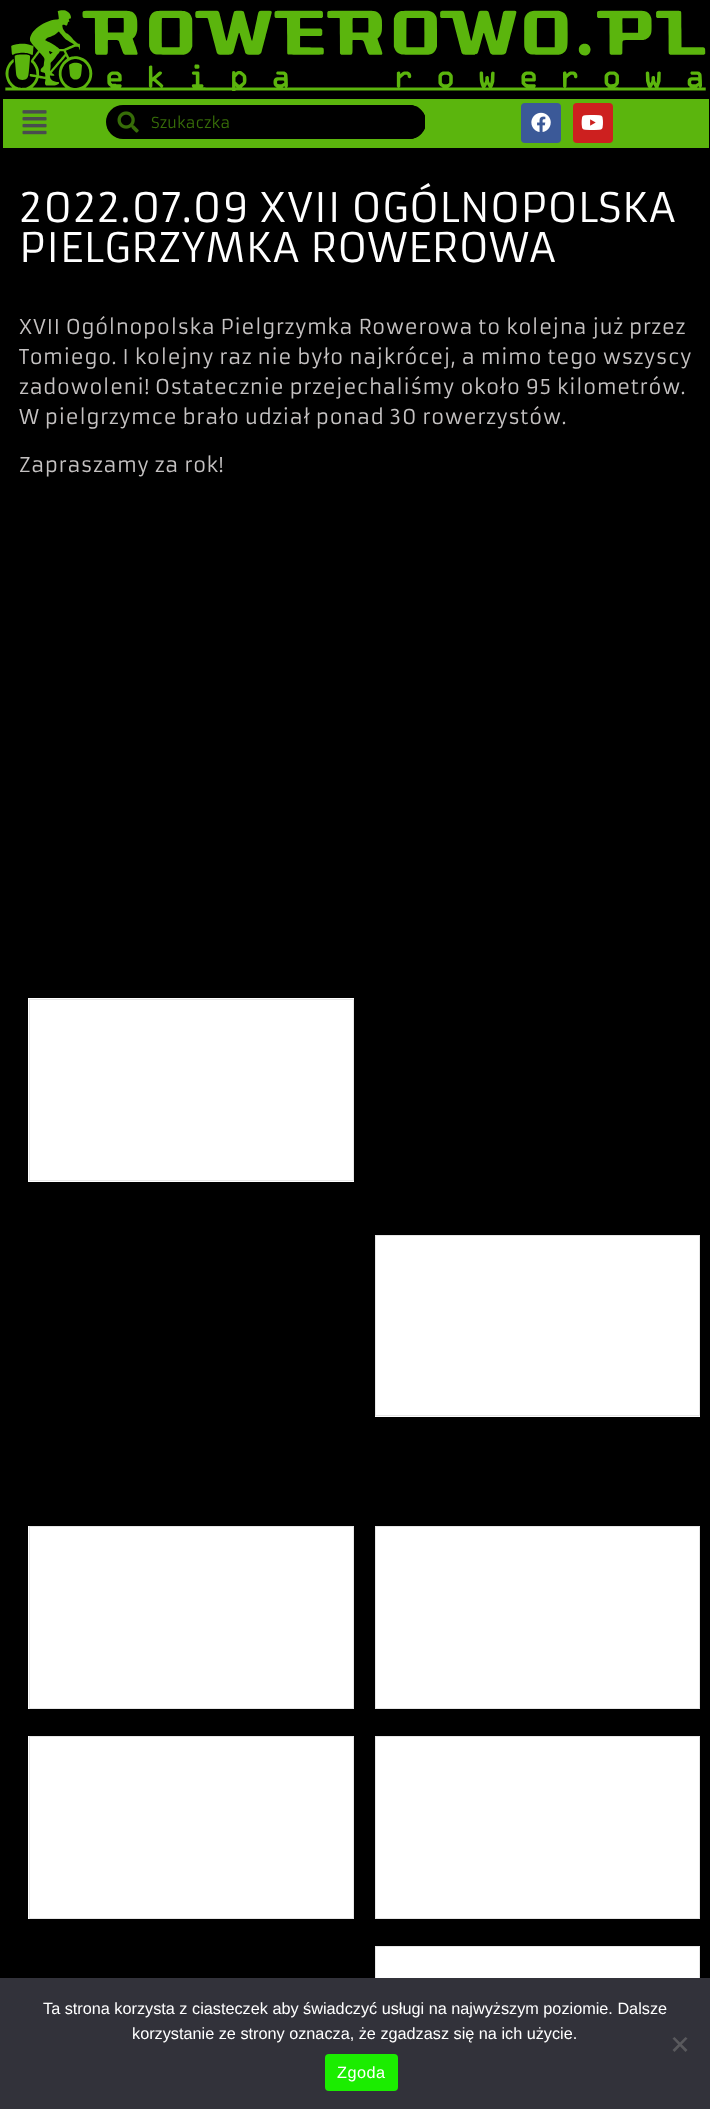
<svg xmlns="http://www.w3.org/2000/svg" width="710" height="2109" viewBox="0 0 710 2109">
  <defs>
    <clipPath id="clip1"><rect x="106" y="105" width="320" height="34" rx="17"/></clipPath>
  </defs>
  <rect width="100%" height="100%" fill="rgb(0,0,0)"/>
  <image x="5" y="10" width="701" height="81" href="pic1.png"/>
  <rect x="3" y="99" width="422" height="49" fill="rgb(91,181,13)"/>
  <image x="22" y="110" width="25" height="25" href="pic2.png"/>
  <rect x="106" y="105" width="320" height="34" rx="17" fill="rgb(0,0,0)"/>
  <g clip-path="url(#clip1)">
    <rect x="140" y="105" width="286" height="34" fill="rgba(0,0,0,0.5)" filter="blur(6px)"/>
  </g>
  <path d="M140 105H409C418.5 105 426 112.5 426 122C426 131.5 418.5 139 409 139H140Z" fill="rgb(0,0,0)"/>
  <rect x="425" y="99" width="284" height="49" fill="rgb(91,181,13)"/>
  <rect x="521" y="103" width="40" height="40" rx="4" fill="rgb(59,89,152)"/>
  <image x="531" y="112" width="20" height="20" href="pic3.png"/>
  <rect x="573" y="103" width="40" height="40" rx="4" fill="rgb(205,32,31)"/>
  <image x="581" y="115" width="22" height="15" href="pic4.png"/>
  <image x="117" y="111" width="22" height="22" href="pic5.png"/>
  <text x="151" y="128" font-family="Armata" font-size="15" letter-spacing="-0.1" fill="rgb(55,109,8)">Szukaczka</text>
  <g font-family="Armata" font-size="40" letter-spacing="0.38" fill="rgb(255,255,255)">
    <text>
      <tspan x="19" y="222">2022.07.09 XVII OGÓLNOPOLSKA</tspan>
      <tspan x="19" y="262">PIELGRZYMKA ROWEROWA</tspan>
    </text>
  </g>
  <g font-family="Armata" font-size="20" letter-spacing="0.38" fill="rgb(197,194,194)">
    <text>
      <tspan x="19" y="334">XVII Ogólnopolska Pielgrzymka Rowerowa to kolejna już przez</tspan>
      <tspan x="19" y="364">Tomiego. I kolejny raz nie było najkrócej, a mimo tego wszyscy</tspan>
      <tspan x="19" y="394">zadowoleni! Ostatecznie przejechaliśmy około 95 kilometrów.</tspan>
      <tspan x="19" y="424">W pielgrzymce brało udział ponad 30 rowerzystów.</tspan>
    </text>
    <text x="19" y="472">Zapraszamy za rok!</text>
  </g>
  <rect x="28" y="998" width="326" height="184" fill="rgb(255,255,255)"/>
  <rect x="29.5" y="999.5" width="324" height="181" fill="none" stroke="rgb(230,230,230)"/>
  <rect x="375" y="1236" width="325" height="181" fill="rgb(255,255,255)"/>
  <rect x="375.5" y="1235.5" width="324" height="180" fill="none" stroke="rgb(230,230,230)"/>
  <rect x="28" y="1526" width="325" height="183" fill="rgb(255,255,255)"/>
  <rect x="29.5" y="1526.5" width="324" height="182" fill="none" stroke="rgb(230,230,230)"/>
  <rect x="375.5" y="1526.5" width="324" height="182" fill="rgb(255,255,255)" stroke="rgb(230,230,230)"/>
  <rect x="28" y="1736" width="325" height="183" fill="rgb(255,255,255)"/>
  <rect x="29.5" y="1736.5" width="324" height="182" fill="none" stroke="rgb(230,230,230)"/>
  <rect x="375.5" y="1736.5" width="324" height="182" fill="rgb(255,255,255)" stroke="rgb(230,230,230)"/>
  <rect x="376" y="1947" width="323" height="31" fill="rgb(255,255,255)"/>
  <rect x="375.5" y="1946.5" width="324" height="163" fill="none" stroke="rgb(230,230,230)"/>
  <rect x="0" y="1978" width="710" height="131" fill="rgb(50,50,58)"/>
  <g font-family="Liberation Sans" font-size="16.25" fill="rgb(255,255,255)">
    <text x="43" y="2014">Ta strona korzysta z ciasteczek aby świadczyć usługi na najwyższym poziomie. Dalsze</text>
    <text x="132" y="2039">korzystanie ze strony oznacza, że zgadzasz się na ich użycie.</text>
  </g>
  <path d="M685.5 2037L687.5 2038.5L674.5 2052L672.5 2050Z" fill="rgb(89,89,93)"/>
  <path d="M672.5 2038.5L674.5 2037L687.5 2050L685.5 2052Z" fill="rgb(89,89,93)"/>
  <rect x="325" y="2054" width="73" height="37" rx="4" fill="rgb(27,237,0)"/>
  <text x="337" y="2078" font-family="Liberation Sans" font-size="16.25" letter-spacing="0.5" fill="rgb(255,255,255)">Zgoda</text>
</svg>
